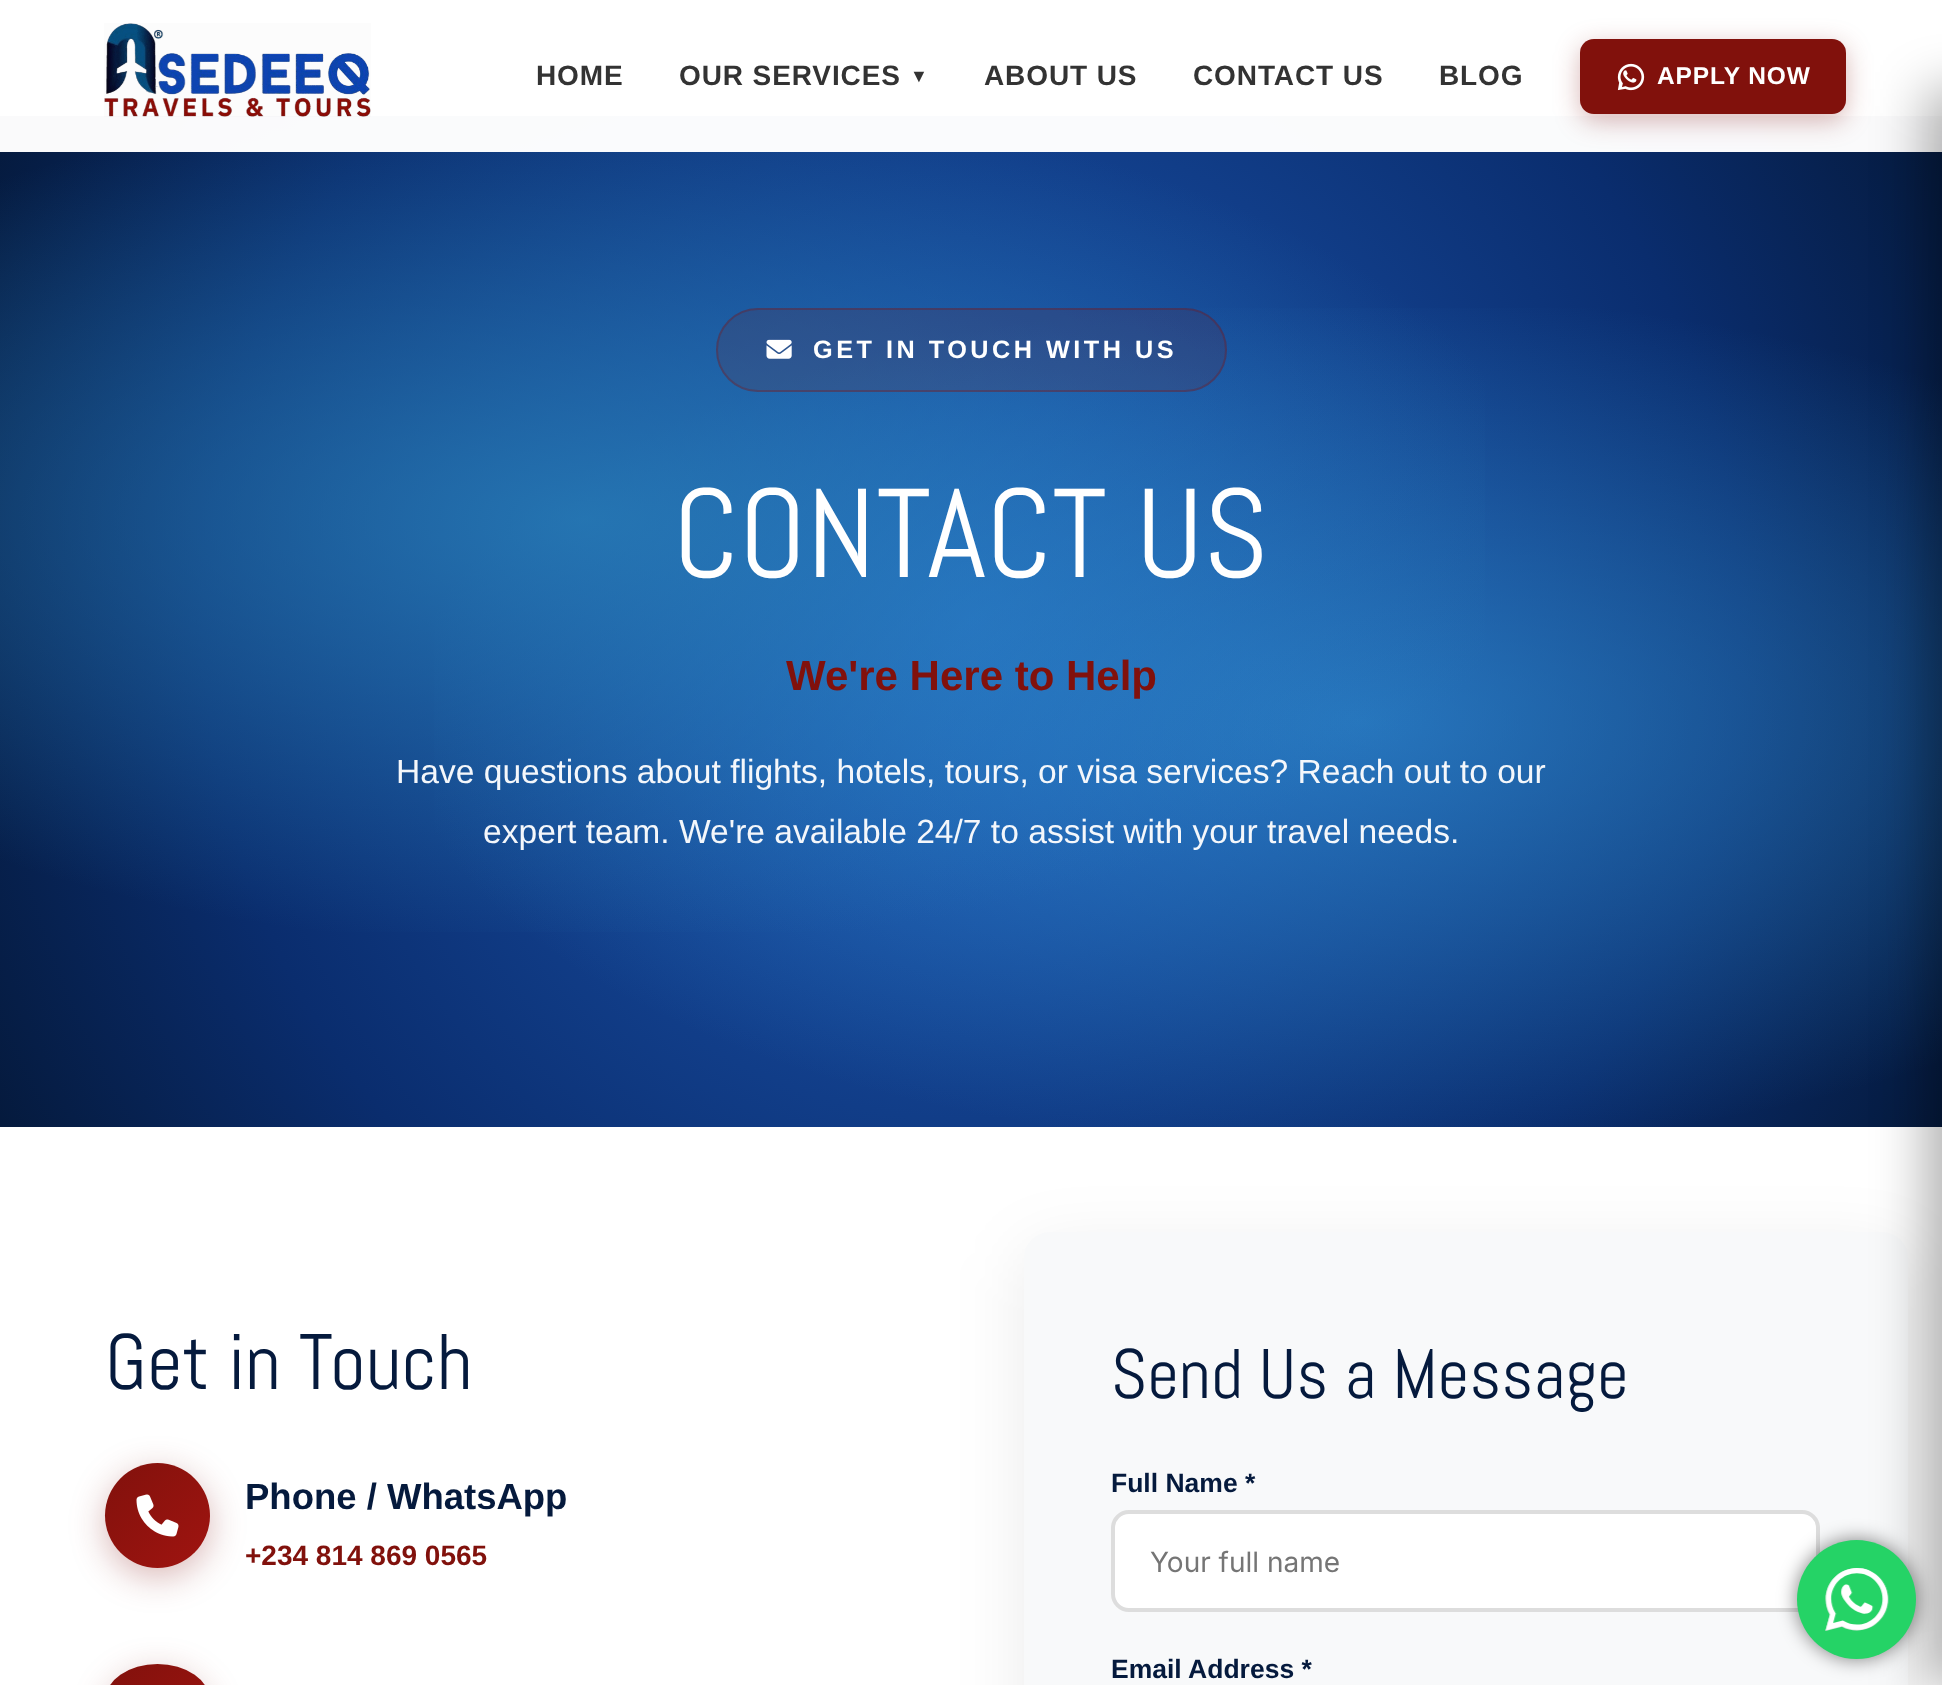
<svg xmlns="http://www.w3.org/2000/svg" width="1942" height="1685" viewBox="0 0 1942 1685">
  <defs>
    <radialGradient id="g1" gradientUnits="userSpaceOnUse" cx="971" cy="621" r="1095"><stop offset="0" stop-color="rgb(30,91,184)"/><stop offset="0.7" stop-color="rgb(10,45,110)"/><stop offset="1" stop-color="rgb(5,26,61)"/></radialGradient>
    <radialGradient id="g2" gradientUnits="userSpaceOnUse" cx="0" cy="0" r="1" gradientTransform="matrix(1923 0 0 858 1360 722)"><stop offset="0" stop-color="rgb(52,152,219)" stop-opacity="0.6"/><stop offset="0.5" stop-color="rgb(52,152,219)" stop-opacity="0"/></radialGradient>
    <radialGradient id="g3" gradientUnits="userSpaceOnUse" cx="0" cy="0" r="1" gradientTransform="matrix(1923 0 0 858 583 520)"><stop offset="0" stop-color="rgb(41,128,185)" stop-opacity="0.8"/><stop offset="0.5" stop-color="rgb(41,128,185)" stop-opacity="0"/></radialGradient>
    <linearGradient id="g4" gradientUnits="userSpaceOnUse" x1="105" y1="1463" x2="210" y2="1568"><stop offset="0" stop-color="rgb(129,17,12)"/><stop offset="1" stop-color="rgb(160,20,16)"/></linearGradient>
    <linearGradient id="g5" gradientUnits="userSpaceOnUse" x1="105" y1="1664" x2="210" y2="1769"><stop offset="0" stop-color="rgb(129,17,12)"/><stop offset="1" stop-color="rgb(160,20,16)"/></linearGradient>
  </defs>
  <rect width="100%" height="100%" fill="rgb(248,249,250)"/>
  <rect x="0" y="116" width="1942" height="1011" fill="url(#g1)"/>
  <rect x="434" y="308" width="1508" height="819" fill="url(#g2)"/>
  <rect x="0" y="116" width="1485" height="816" fill="url(#g3)"/>
  <rect x="0" y="0" width="1942" height="152" fill="rgba(255,255,255,0.98)"/>
  <image x="104" y="23" width="267" height="94" href="pic1.png"/>
  <g font-family="Liberation Sans" font-size="28" font-weight="bold" letter-spacing="0.9" fill="rgb(51,51,51)">
    <text x="536" y="85">HOME</text>
    <text x="679" y="85">OUR SERVICES</text>
  </g>
  <text x="910" y="82" font-family="Liberation Sans" font-size="18" font-weight="bold" letter-spacing="0.9" fill="rgb(51,51,51)">▼</text>
  <g font-family="Liberation Sans" font-size="28" font-weight="bold" letter-spacing="0.9" fill="rgb(51,51,51)">
    <text x="984" y="85">ABOUT US</text>
    <text x="1193" y="85">CONTACT US</text>
    <text x="1439" y="85">BLOG</text>
  </g>
  <rect x="1580" y="46" width="266" height="75" rx="14" fill="rgba(129,17,12,0.3)" filter="blur(13px)"/>
  <rect x="1580" y="39" width="266" height="75" rx="14" fill="rgb(129,17,12)"/>
  <image x="1617" y="63" width="28" height="28" href="pic2.png"/>
  <text x="1657" y="84" font-family="Liberation Sans" font-size="24.5" font-weight="bold" letter-spacing="0.9" fill="rgb(255,255,255)">APPLY NOW</text>
  <rect x="0" y="1127" width="1942" height="558" fill="rgb(255,255,255)"/>
  <rect x="1024" y="1250" width="884" height="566" rx="26" fill="rgba(0,0,0,0.08)" filter="blur(35px)"/>
  <rect x="1024" y="1232" width="884" height="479" rx="26" fill="rgb(248,249,250)"/>
  <rect x="1925" y="89" width="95" height="1596" fill="rgba(0,0,0,0.3)" filter="blur(26px)"/>
  <rect x="716" y="308" width="511" height="84" rx="42" fill="rgba(129,17,12,0.15)"/>
  <rect x="717" y="309" width="509" height="82" rx="41" fill="none" stroke="rgba(129,17,12,0.3)" stroke-width="2"/>
  <image x="766" y="339" width="26" height="20" href="pic3.png"/>
  <text x="813" y="358" font-family="Liberation Sans" font-size="25.25" font-weight="bold" letter-spacing="3.5" fill="rgb(255,255,255)">GET IN TOUCH WITH US</text>
  <text x="673" y="577" font-family="Abel" font-size="126" fill="rgb(255,255,255)">CONTACT US</text>
  <text x="786" y="690" font-family="Liberation Sans" font-size="42" font-weight="bold" fill="rgb(129,17,12)">We're Here to Help</text>
  <g font-family="Liberation Sans" font-size="33.6" fill="rgb(244,247,251)">
    <text x="396" y="783">Have questions about flights, hotels, tours, or visa services? Reach out to our</text>
    <text x="483" y="843">expert team. We're available 24/7 to assist with your travel needs.</text>
  </g>
  <text x="105" y="1389" font-family="Abel" font-size="78.5" fill="rgb(5,26,61)">Get in Touch</text>
  <rect x="105" y="1472" width="105" height="105" rx="52.5" fill="rgba(129,17,12,0.3)" filter="blur(17.5px)"/>
  <circle cx="157.5" cy="1515.5" r="52.5" fill="url(#g4)"/>
  <image x="136" y="1494" width="43" height="43" href="pic4.png"/>
  <text x="245" y="1509" font-family="Liberation Sans" font-size="36.5" font-weight="bold" fill="rgb(5,26,61)">Phone / WhatsApp</text>
  <text x="245" y="1565" font-family="Liberation Sans" font-size="28" font-weight="bold" fill="rgb(129,17,12)">+234 814 869 0565</text>
  <rect x="105" y="1673" width="105" height="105" rx="52.5" fill="rgba(129,17,12,0.3)" filter="blur(17.5px)"/>
  <rect x="105" y="1664" width="105" height="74" rx="52.5" fill="url(#g5)"/>
  <text x="1111" y="1398" font-family="Abel" font-size="70" fill="rgb(5,26,61)">Send Us a Message</text>
  <text x="1111" y="1492" font-family="Liberation Sans" font-size="26.5" font-weight="bold" fill="rgb(5,26,61)">Full Name *</text>
  <rect x="1113" y="1512" width="705" height="98" rx="16" fill="rgb(255,255,255)" stroke="rgb(221,221,221)" stroke-width="4"/>
  <text x="1150" y="1572" font-family="Inter" font-size="28" fill="rgb(117,117,117)">Your full name</text>
  <text x="1111" y="1678" font-family="Liberation Sans" font-size="26.5" font-weight="bold" fill="rgb(5,26,61)">Email Address *</text>
  <rect x="1797" y="1540" width="119" height="119" rx="59.5" fill="rgba(0,0,0,0.5)" filter="blur(9.5px)"/>
  <circle cx="1856.5" cy="1599.5" r="59.5" fill="rgb(37,211,102)"/>
  <image x="1825" y="1568" width="64" height="63" href="pic5.png"/>
</svg>
